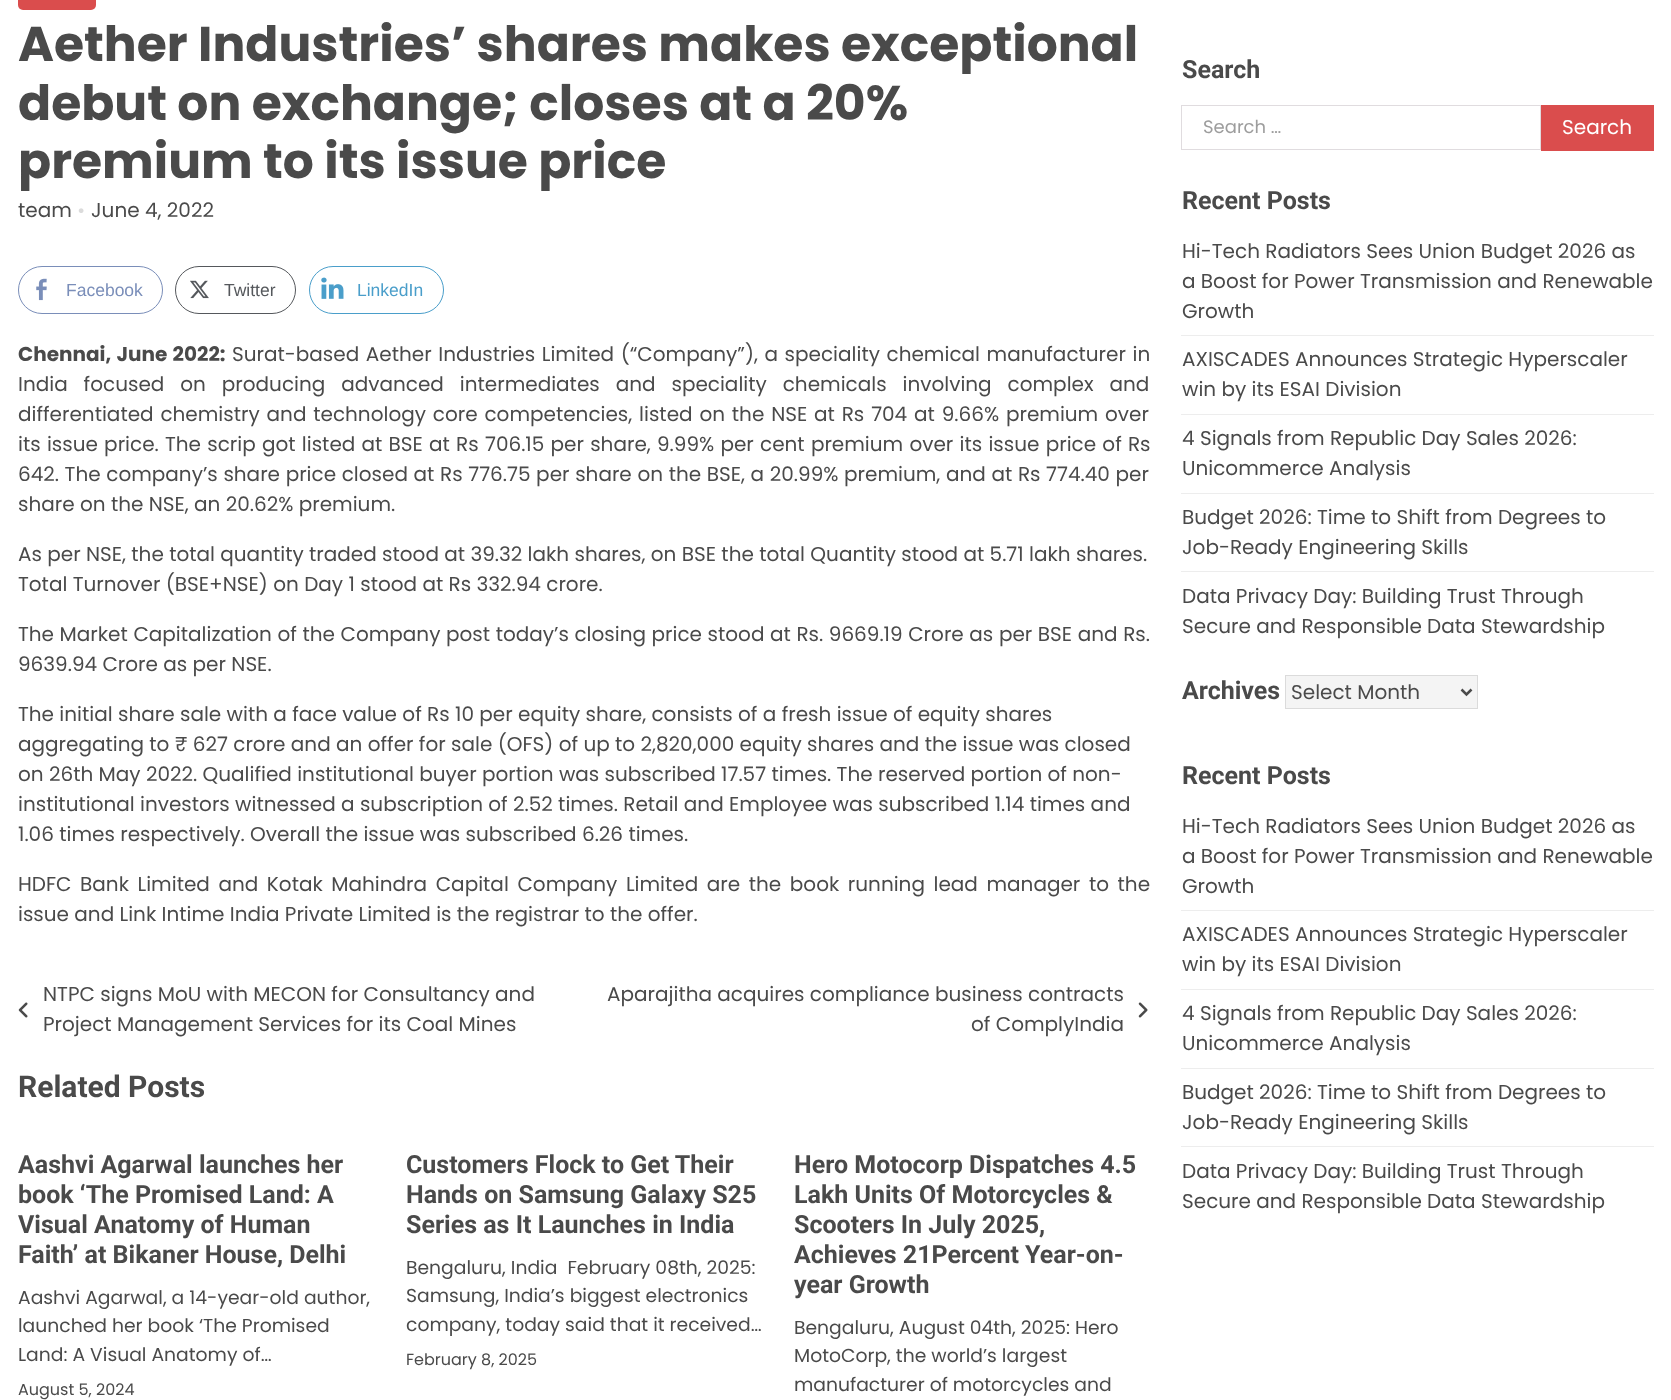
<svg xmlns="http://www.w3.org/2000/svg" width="1671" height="1400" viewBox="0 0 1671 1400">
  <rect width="100%" height="100%" fill="rgb(255,255,255)"/>
  <rect x="18" y="-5" width="78" height="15" rx="5" fill="rgb(218,77,77)"/>
  <g font-family="Poppins" font-size="48.8" font-weight="bold" fill="rgb(74,74,74)">
    <text>
      <tspan x="18" y="61">Aether Industries’ shares makes exceptional</tspan>
      <tspan x="18" y="120">debut on exchange; closes at a 20%</tspan>
      <tspan x="18" y="178">premium to its issue price</tspan>
    </text>
  </g>
  <text x="18" y="217" font-family="Poppins" font-size="20" fill="rgb(74,74,74)">team</text>
  <image x="78" y="208" width="6" height="5" href="pic1.png"/>
  <text x="91" y="217" font-family="Poppins" font-size="20" fill="rgb(74,74,74)">June 4, 2022</text>
  <rect x="18.5" y="266.5" width="144" height="47" rx="23.5" fill="none" stroke="rgb(122,142,185)"/>
  <image x="36" y="278" width="11" height="23" href="pic2.png"/>
  <text x="66" y="296" font-family="Liberation Sans" font-size="17.5" fill="rgb(122,142,185)">Facebook</text>
  <rect x="175.5" y="266.5" width="120" height="47" rx="23.5" fill="none" stroke="rgb(85,88,92)"/>
  <image x="190" y="280" width="19" height="19" href="pic3.png"/>
  <text x="224" y="296" font-family="Liberation Sans" font-size="17.5" fill="rgb(85,88,92)">Twitter</text>
  <rect x="309.5" y="266.5" width="134" height="47" rx="23.5" fill="none" stroke="rgb(74,158,202)"/>
  <image x="321" y="277" width="23" height="22" href="pic4.png"/>
  <text x="357" y="296" font-family="Liberation Sans" font-size="17.5" fill="rgb(74,158,202)">LinkedIn</text>
  <text x="18" y="361" word-spacing="1" font-family="Poppins" font-size="20" font-weight="bold" fill="rgb(74,74,74)">Chennai, June 2022:</text>
  <g font-family="Poppins" font-size="20" fill="rgb(74,74,74)">
    <text x="232" y="361" word-spacing="1.25">Surat-based Aether Industries Limited (“Company”), a speciality chemical manufacturer in</text>
    <text>
      <tspan x="18" y="391" word-spacing="10.6">India focused on producing advanced intermediates and speciality chemicals involving complex and</tspan>
      <tspan x="18" y="421" word-spacing="1.5">differentiated chemistry and technology core competencies, listed on the NSE at Rs 704 at 9.66% premium over</tspan>
      <tspan x="18" y="451" word-spacing="0.9">its issue price. The scrip got listed at BSE at Rs 706.15 per share, 9.99% per cent premium over its issue price of Rs</tspan>
      <tspan x="18" y="481" word-spacing="0.3">642. The company’s share price closed at Rs 776.75 per share on the BSE, a 20.99% premium, and at Rs 774.40 per</tspan>
      <tspan x="18" y="511">share on the NSE, an 20.62% premium.</tspan>
    </text>
    <text>
      <tspan x="18" y="561">As per NSE, the total quantity traded stood at 39.32 lakh shares, on BSE the total Quantity stood at 5.71 lakh shares.</tspan>
      <tspan x="18" y="591">Total Turnover (BSE+NSE) on Day 1 stood at Rs 332.94 crore.</tspan>
    </text>
    <text>
      <tspan x="18" y="641" word-spacing="0.25">The Market Capitalization of the Company post today’s closing price stood at Rs. 9669.19 Crore as per BSE and Rs.</tspan>
      <tspan x="18" y="671">9639.94 Crore as per NSE.</tspan>
    </text>
    <text>
      <tspan x="18" y="721">The initial share sale with a face value of Rs 10 per equity share, consists of a fresh issue of equity shares</tspan>
      <tspan x="18" y="751">aggregating to ₹ 627 crore and an offer for sale (OFS) of up to 2,820,000 equity shares and the issue was closed</tspan>
      <tspan x="18" y="781">on 26th May 2022. Qualified institutional buyer portion was subscribed 17.57 times. The reserved portion of non-</tspan>
      <tspan x="18" y="811">institutional investors witnessed a subscription of 2.52 times. Retail and Employee was subscribed 1.14 times and</tspan>
      <tspan x="18" y="841">1.06 times respectively. Overall the issue was subscribed 6.26 times.</tspan>
    </text>
    <text>
      <tspan x="18" y="891" word-spacing="3.25">HDFC Bank Limited and Kotak Mahindra Capital Company Limited are the book running lead manager to the</tspan>
      <tspan x="18" y="921">issue and Link Intime India Private Limited is the registrar to the offer.</tspan>
    </text>
  </g>
  <image x="18" y="1002" width="10" height="16" href="pic5.png"/>
  <g font-family="Poppins" font-size="20" fill="rgb(74,74,74)">
    <text>
      <tspan x="43" y="1001">NTPC signs MoU with MECON for Consultancy and</tspan>
      <tspan x="43" y="1031">Project Management Services for its Coal Mines</tspan>
    </text>
    <text x="607" y="1001">Aparajitha acquires compliance business contracts</text>
    <text x="971" y="1031">of ComplyIndia</text>
  </g>
  <image x="1138" y="1002" width="10" height="16" href="pic6.png"/>
  <text x="18" y="1097" font-family="Roboto" font-size="30" font-weight="bold" fill="rgb(74,74,74)">Related Posts</text>
  <g font-family="Roboto" font-size="25" font-weight="bold" fill="rgb(74,74,74)">
    <text>
      <tspan x="18" y="1173">Aashvi Agarwal launches her</tspan>
      <tspan x="18" y="1203">book ‘The Promised Land: A</tspan>
      <tspan x="18" y="1233">Visual Anatomy of Human</tspan>
      <tspan x="18" y="1263">Faith’ at Bikaner House, Delhi</tspan>
    </text>
  </g>
  <g font-family="Poppins" font-size="18.75" fill="rgb(74,74,74)">
    <text>
      <tspan x="18" y="1304">Aashvi Agarwal, a 14-year-old author,</tspan>
      <tspan x="18" y="1332">launched her book ‘The Promised</tspan>
      <tspan x="18" y="1361">Land: A Visual Anatomy of…</tspan>
    </text>
  </g>
  <text x="18" y="1395" font-family="Poppins" font-size="16" fill="rgb(74,74,74)">August 5, 2024</text>
  <g font-family="Roboto" font-size="25" font-weight="bold" fill="rgb(74,74,74)">
    <text>
      <tspan x="406" y="1173">Customers Flock to Get Their</tspan>
      <tspan x="406" y="1203">Hands on Samsung Galaxy S25</tspan>
      <tspan x="406" y="1233">Series as It Launches in India</tspan>
    </text>
  </g>
  <g font-family="Poppins" font-size="18.75" fill="rgb(74,74,74)">
    <text xml:space="preserve"><tspan x="406" y="1274">Bengaluru, India  February 08th, 2025:</tspan><tspan x="406" y="1302">Samsung, India’s biggest electronics</tspan><tspan x="406" y="1331">company, today said that it received…</tspan></text>
  </g>
  <text x="406" y="1365" font-family="Poppins" font-size="16" fill="rgb(74,74,74)">February 8, 2025</text>
  <g font-family="Roboto" font-size="25" font-weight="bold" fill="rgb(74,74,74)">
    <text>
      <tspan x="794" y="1173">Hero Motocorp Dispatches 4.5</tspan>
      <tspan x="794" y="1203">Lakh Units Of Motorcycles &amp;</tspan>
      <tspan x="794" y="1233">Scooters In July 2025,</tspan>
      <tspan x="794" y="1263">Achieves 21Percent Year-on-</tspan>
      <tspan x="794" y="1293">year Growth</tspan>
    </text>
  </g>
  <g font-family="Poppins" font-size="18.75" fill="rgb(74,74,74)">
    <text>
      <tspan x="794" y="1334">Bengaluru, August 04th, 2025: Hero</tspan>
      <tspan x="794" y="1362">MotoCorp, the world’s largest</tspan>
      <tspan x="794" y="1391">manufacturer of motorcycles and</tspan>
    </text>
  </g>
  <text x="1182" y="78" font-family="Roboto" font-size="25" font-weight="bold" fill="rgb(74,74,74)">Search</text>
  <rect x="1181.5" y="105.5" width="359" height="44" fill="none" stroke="rgb(224,220,223)"/>
  <text x="1203" y="133" font-family="Poppins" font-size="18" fill="rgb(157,157,157)">Search …</text>
  <rect x="1541" y="105" width="113" height="46" fill="rgb(218,77,77)"/>
  <text x="1562" y="134" font-family="Poppins" font-size="20" fill="rgb(255,255,255)">Search</text>
  <text x="1182" y="209" font-family="Roboto" font-size="25" font-weight="bold" fill="rgb(74,74,74)">Recent Posts</text>
  <rect x="1181" y="335" width="473" height="1" fill="rgb(237,237,237)"/>
  <g font-family="Poppins" font-size="20" fill="rgb(74,74,74)">
    <text>
      <tspan x="1182" y="258">Hi-Tech Radiators Sees Union Budget 2026 as</tspan>
      <tspan x="1182" y="288">a Boost for Power Transmission and Renewable</tspan>
      <tspan x="1182" y="318">Growth</tspan>
    </text>
  </g>
  <rect x="1181" y="414" width="473" height="1" fill="rgb(237,237,237)"/>
  <g font-family="Poppins" font-size="20" fill="rgb(74,74,74)">
    <text>
      <tspan x="1182" y="366">AXISCADES Announces Strategic Hyperscaler</tspan>
      <tspan x="1182" y="396">win by its ESAI Division</tspan>
    </text>
  </g>
  <rect x="1181" y="493" width="473" height="1" fill="rgb(237,237,237)"/>
  <g font-family="Poppins" font-size="20" fill="rgb(74,74,74)">
    <text>
      <tspan x="1182" y="445">4 Signals from Republic Day Sales 2026:</tspan>
      <tspan x="1182" y="475">Unicommerce Analysis</tspan>
    </text>
  </g>
  <rect x="1181" y="571" width="473" height="1" fill="rgb(237,237,237)"/>
  <g font-family="Poppins" font-size="20" fill="rgb(74,74,74)">
    <text>
      <tspan x="1182" y="524">Budget 2026: Time to Shift from Degrees to</tspan>
      <tspan x="1182" y="554">Job-Ready Engineering Skills</tspan>
    </text>
    <text>
      <tspan x="1182" y="603">Data Privacy Day: Building Trust Through</tspan>
      <tspan x="1182" y="633">Secure and Responsible Data Stewardship</tspan>
    </text>
  </g>
  <text x="1182" y="699" font-family="Roboto" font-size="25" font-weight="bold" fill="rgb(74,74,74)">Archives</text>
  <rect x="1285.5" y="675.5" width="192" height="33" fill="rgb(244,244,244)" stroke="rgb(219,219,219)"/>
  <path d="M1461.5 689.5L1466.5 694.5L1471.5 689.5" fill="none" stroke="rgb(74,74,74)" stroke-width="2.5"/>
  <text x="1291" y="699" font-family="Poppins" font-size="20" fill="rgb(74,74,74)">Select Month</text>
  <text x="1182" y="784" font-family="Roboto" font-size="25" font-weight="bold" fill="rgb(74,74,74)">Recent Posts</text>
  <rect x="1181" y="910" width="473" height="1" fill="rgb(237,237,237)"/>
  <g font-family="Poppins" font-size="20" fill="rgb(74,74,74)">
    <text>
      <tspan x="1182" y="833">Hi-Tech Radiators Sees Union Budget 2026 as</tspan>
      <tspan x="1182" y="863">a Boost for Power Transmission and Renewable</tspan>
      <tspan x="1182" y="893">Growth</tspan>
    </text>
  </g>
  <rect x="1181" y="989" width="473" height="1" fill="rgb(237,237,237)"/>
  <g font-family="Poppins" font-size="20" fill="rgb(74,74,74)">
    <text>
      <tspan x="1182" y="941">AXISCADES Announces Strategic Hyperscaler</tspan>
      <tspan x="1182" y="971">win by its ESAI Division</tspan>
    </text>
  </g>
  <rect x="1181" y="1068" width="473" height="1" fill="rgb(237,237,237)"/>
  <g font-family="Poppins" font-size="20" fill="rgb(74,74,74)">
    <text>
      <tspan x="1182" y="1020">4 Signals from Republic Day Sales 2026:</tspan>
      <tspan x="1182" y="1050">Unicommerce Analysis</tspan>
    </text>
  </g>
  <rect x="1181" y="1146" width="473" height="1" fill="rgb(237,237,237)"/>
  <g font-family="Poppins" font-size="20" fill="rgb(74,74,74)">
    <text>
      <tspan x="1182" y="1099">Budget 2026: Time to Shift from Degrees to</tspan>
      <tspan x="1182" y="1129">Job-Ready Engineering Skills</tspan>
    </text>
    <text>
      <tspan x="1182" y="1178">Data Privacy Day: Building Trust Through</tspan>
      <tspan x="1182" y="1208">Secure and Responsible Data Stewardship</tspan>
    </text>
  </g>
</svg>
